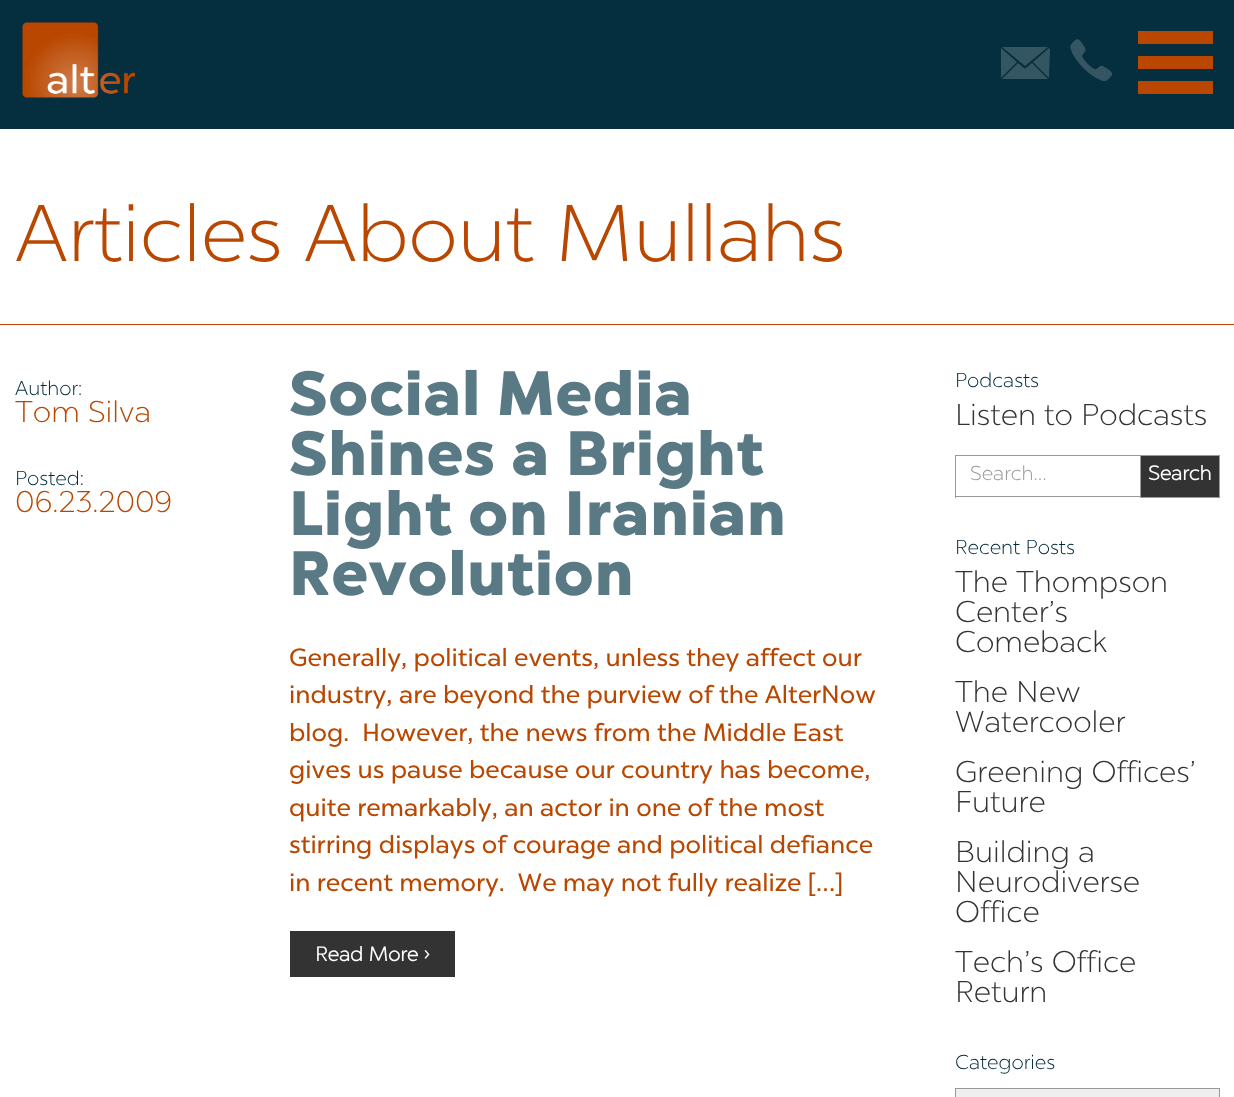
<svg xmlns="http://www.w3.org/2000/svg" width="1234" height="1097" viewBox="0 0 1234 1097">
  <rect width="100%" height="100%" fill="rgb(255,255,255)"/>
  <rect x="0" y="0" width="1234" height="129" fill="rgb(5,46,62)"/>
  <image x="22" y="22" width="113" height="76" href="pic1.png"/>
  <path d="M1025 66L1048 47H1002ZM1050 49L1049 48L1033 62L1049 78ZM1001 48V78L1017 62ZM1032 63C1023 70 1027 70 1018 63L1002 79H1048Z" fill="rgb(52,85,98)"/>
  <image x="1070" y="39" width="43" height="42" href="pic2.png"/>
  <rect x="1138" y="81" width="75" height="13" fill="rgb(185,71,0)"/>
  <rect x="1138" y="31" width="75" height="13" fill="rgb(185,71,0)"/>
  <rect x="1138" y="56" width="75" height="13" fill="rgb(185,71,0)"/>
  <rect x="0" y="324" width="1234" height="1" fill="rgb(185,71,0)"/>
  <text x="15" y="261" font-family="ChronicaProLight" font-size="80" fill="rgb(185,71,0)">Articles About Mullahs</text>
  <text x="15" y="395" font-family="ChronicaProLight" font-size="20" fill="rgb(0,42,58)">Author:</text>
  <text x="15" y="422" font-family="ChronicaProLight" font-size="30" fill="rgb(185,71,0)">Tom Silva</text>
  <text x="15" y="485" font-family="ChronicaProLight" font-size="20" fill="rgb(0,42,58)">Posted:</text>
  <text x="15" y="512" font-family="ChronicaProLight" font-size="30" fill="rgb(185,71,0)">06.23.2009</text>
  <g font-family="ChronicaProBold" font-size="60" font-weight="bold" letter-spacing="2.5" fill="rgb(89,121,133)">
    <text>
      <tspan x="289" y="415">Social Media</tspan>
      <tspan x="289" y="475">Shines a Bright</tspan>
      <tspan x="289" y="535">Light on Iranian</tspan>
      <tspan x="289" y="595">Revolution</tspan>
    </text>
  </g>
  <g font-family="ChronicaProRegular" font-size="25" fill="rgb(185,71,0)">
    <text xml:space="preserve"><tspan x="289" y="666">Generally, political events, unless they affect our</tspan><tspan x="289" y="703">industry, are beyond the purview of the AlterNow</tspan><tspan x="289" y="741">blog.  However, the news from the Middle East</tspan><tspan x="289" y="778">gives us pause because our country has become,</tspan><tspan x="289" y="816">quite remarkably, an actor in one of the most</tspan><tspan x="289" y="853">stirring displays of courage and political defiance</tspan><tspan x="289" y="891">in recent memory.  We may not fully realize […]</tspan></text>
  </g>
  <rect x="290" y="931" width="165" height="46" fill="rgb(51,51,51)"/>
  <text x="315" y="961" font-family="ChronicaProLight" font-size="20" font-weight="bold" fill="rgb(255,255,255)">Read More ›</text>
  <text x="955" y="387" font-family="ChronicaProLight" font-size="20" fill="rgb(0,42,58)">Podcasts</text>
  <text x="955" y="425" font-family="ChronicaProLight" font-size="30" fill="rgb(51,51,51)">Listen to Podcasts</text>
  <rect x="955" y="455" width="185" height="1" fill="rgb(153,153,153)"/>
  <rect x="955" y="496" width="185" height="1" fill="rgb(153,153,153)"/>
  <rect x="955" y="455" width="1" height="43" fill="rgb(153,153,153)"/>
  <text x="970" y="480" font-family="ChronicaProLight" font-size="20" fill="rgb(153,153,153)">Search…</text>
  <rect x="1140.5" y="455.5" width="79" height="42" fill="rgb(51,51,51)" stroke="rgb(153,153,153)"/>
  <text x="1148" y="480" font-family="ChronicaProLight" font-size="20" font-weight="bold" fill="rgb(255,255,255)">Search</text>
  <text x="955" y="554" font-family="ChronicaProLight" font-size="20" fill="rgb(0,42,58)">Recent Posts</text>
  <g font-family="ChronicaProLight" font-size="30" fill="rgb(51,51,51)">
    <text>
      <tspan x="955" y="592">The Thompson</tspan>
      <tspan x="955" y="622">Center’s</tspan>
      <tspan x="955" y="652">Comeback</tspan>
      <tspan x="955" y="702">The New</tspan>
      <tspan x="955" y="732">Watercooler</tspan>
      <tspan x="955" y="782">Greening Offices’</tspan>
      <tspan x="955" y="812">Future</tspan>
      <tspan x="955" y="862">Building a</tspan>
      <tspan x="955" y="892">Neurodiverse</tspan>
      <tspan x="955" y="922">Office</tspan>
      <tspan x="955" y="972">Tech’s Office</tspan>
      <tspan x="955" y="1002">Return</tspan>
    </text>
  </g>
  <text x="955" y="1069" font-family="ChronicaProLight" font-size="20" fill="rgb(0,42,58)">Categories</text>
  <rect x="955.5" y="1088.5" width="264" height="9" fill="rgb(239,239,239)" stroke="rgb(153,153,153)"/>
</svg>
